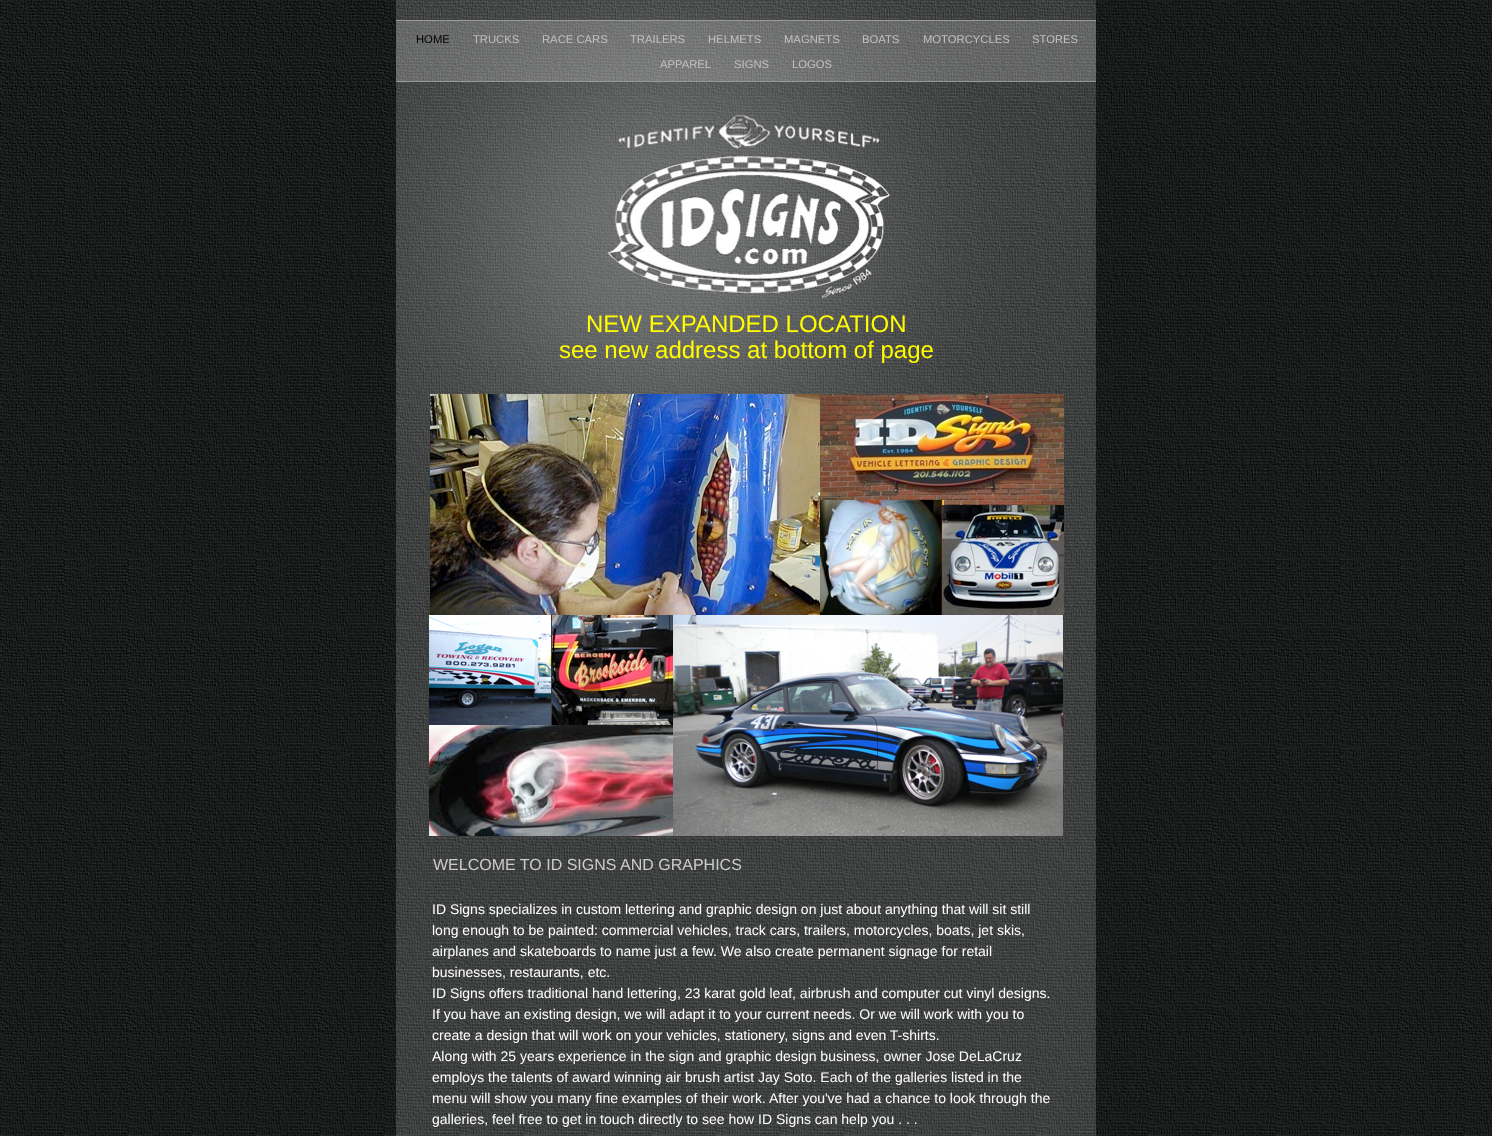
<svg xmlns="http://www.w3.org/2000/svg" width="1492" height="1136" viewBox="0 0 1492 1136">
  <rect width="100%" height="100%" fill="rgb(255,255,255)"/>
  <image x="0" y="0" width="1492" height="1136" href="pic1.png"/>
  <image x="396" y="620" width="700" height="516" href="pic2.png"/>
  <image x="396" y="0" width="700" height="620" href="pic3.png"/>
  <rect x="396" y="21" width="700" height="60" fill="rgba(255,255,255,0.2)"/>
  <rect x="396" y="20" width="700" height="1" fill="rgb(153,153,153)"/>
  <rect x="396" y="81" width="700" height="1" fill="rgb(153,153,153)"/>
  <text x="416" y="43" font-family="Liberation Sans" font-size="11.25" fill="rgb(0,0,0)">HOME</text>
  <g font-family="Liberation Sans" font-size="11.25" fill="rgb(193,193,193)">
    <text x="473" y="43">TRUCKS</text>
    <text x="542" y="43">RACE CARS</text>
    <text x="630" y="43">TRAILERS</text>
    <text x="708" y="43">HELMETS</text>
    <text x="784" y="43">MAGNETS</text>
    <text x="862" y="43">BOATS</text>
    <text x="923" y="43">MOTORCYCLES</text>
    <text x="1032" y="43">STORES</text>
    <text x="660" y="68">APPAREL</text>
    <text x="734" y="68">SIGNS</text>
    <text x="792" y="68">LOGOS</text>
  </g>
  <image x="607" y="114" width="284" height="184" href="pic4.png"/>
  <g font-family="Liberation Sans" font-size="24" fill="rgb(255,251,0)">
    <text x="586" y="332">NEW EXPANDED LOCATION</text>
    <text x="559" y="358">see new address at bottom of page</text>
  </g>
  <image x="430" y="394" width="390" height="221" href="pic5.png"/>
  <image x="820" y="394" width="244" height="111" href="pic6.png"/>
  <image x="820" y="500" width="124" height="115" href="pic7.png"/>
  <image x="942" y="505" width="122" height="110" href="pic8.png"/>
  <image x="429" y="615" width="122" height="110" href="pic9.png"/>
  <image x="552" y="615" width="121" height="110" href="pic10.png"/>
  <image x="673" y="615" width="390" height="221" href="pic11.png"/>
  <image x="429" y="725" width="244" height="111" href="pic12.png"/>
  <text x="433" y="870" font-family="Liberation Sans" font-size="16" fill="rgb(203,203,203)">WELCOME TO ID SIGNS AND GRAPHICS</text>
  <g font-family="Liberation Sans" font-size="14" fill="rgb(255,255,255)">
    <text>
      <tspan x="432" y="914">ID Signs specializes in custom lettering and graphic design on just about anything that will sit still</tspan>
      <tspan x="432" y="935">long enough to be painted: commercial vehicles, track cars, trailers, motorcycles, boats, jet skis,</tspan>
      <tspan x="432" y="956">airplanes and skateboards to name just a few. We also create permanent signage for retail</tspan>
      <tspan x="432" y="977">businesses, restaurants, etc.</tspan>
      <tspan x="432" y="998">ID Signs offers traditional hand lettering, 23 karat gold leaf, airbrush and computer cut vinyl designs.</tspan>
      <tspan x="432" y="1019">If you have an existing design, we will adapt it to your current needs. Or we will work with you to</tspan>
      <tspan x="432" y="1040">create a design that will work on your vehicles, stationery, signs and even T-shirts.</tspan>
      <tspan x="432" y="1061">Along with 25 years experience in the sign and graphic design business, owner Jose DeLaCruz</tspan>
      <tspan x="432" y="1082">employs the talents of award winning air brush artist Jay Soto. Each of the galleries listed in the</tspan>
      <tspan x="432" y="1103">menu will show you many fine examples of their work. After you've had a chance to look through the</tspan>
      <tspan x="432" y="1124">galleries, feel free to get in touch directly to see how ID Signs can help you . . .</tspan>
    </text>
  </g>
</svg>
